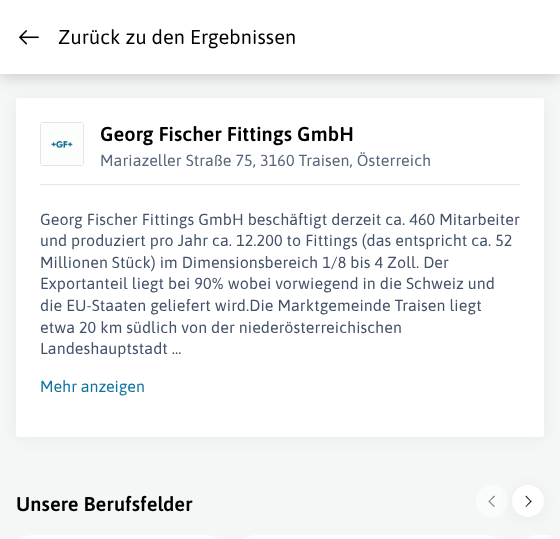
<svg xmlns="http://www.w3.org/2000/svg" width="560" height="539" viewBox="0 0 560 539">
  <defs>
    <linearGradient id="g1" gradientUnits="userSpaceOnUse" x1="553" y1="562" x2="545" y2="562"><stop offset="0" stop-color="rgb(245,247,247)"/><stop offset="1" stop-color="rgb(245,247,247)" stop-opacity="0"/></linearGradient>
  </defs>
  <rect width="100%" height="100%" fill="rgb(245,247,247)"/>
  <rect x="16" y="100" width="528" height="339" rx="3" fill="rgba(0,0,0,0.05)" filter="blur(8px)"/>
  <rect x="16" y="98" width="528" height="339" rx="3" fill="rgb(255,255,255)"/>
  <rect x="0" y="2" width="560" height="74" fill="rgba(0,0,0,0.2)" filter="blur(8px)"/>
  <rect x="0" y="0" width="560" height="74" fill="rgb(255,255,255)"/>
  <image x="19" y="30" width="20" height="15" href="pic1.png"/>
  <text x="58" y="44" font-family="Asap" font-size="20" letter-spacing="0.1" fill="rgb(0,0,0)">Zurück zu den Ergebnissen</text>
  <rect x="40.5" y="122.5" width="43" height="43" rx="2.5" fill="none" stroke="rgb(227,230,233)"/>
  <image x="41" y="123" width="42" height="42" href="pic2.png"/>
  <text x="100" y="141" font-family="Asap" font-size="20" font-weight="600" letter-spacing="0.1" fill="rgb(0,0,0)">Georg Fischer Fittings GmbH</text>
  <text x="100" y="166" font-family="Asap" font-size="16" letter-spacing="0.1" fill="rgb(89,102,123)">Mariazeller Straße 75, 3160 Traisen, Österreich</text>
  <rect x="40" y="184" width="480" height="1" fill="rgb(227,230,233)"/>
  <g font-family="Asap" font-size="16" letter-spacing="0.1" fill="rgb(67,82,105)">
    <text>
      <tspan x="40" y="225">Georg Fischer Fittings GmbH beschäftigt derzeit ca. 460 Mitarbeiter</tspan>
      <tspan x="40" y="246">und produziert pro Jahr ca. 12.200 to Fittings (das entspricht ca. 52</tspan>
      <tspan x="40" y="268">Millionen Stück) im Dimensionsbereich 1/8 bis 4 Zoll. Der</tspan>
      <tspan x="40" y="289">Exportanteil liegt bei 90% wobei vorwiegend in die Schweiz und</tspan>
      <tspan x="40" y="311">die EU-Staaten geliefert wird.Die Marktgemeinde Traisen liegt</tspan>
      <tspan x="40" y="333">etwa 20 km südlich von der niederösterreichischen</tspan>
      <tspan x="40" y="354">Landeshauptstadt ...</tspan>
    </text>
  </g>
  <text x="40" y="392" font-family="Asap" font-size="16" fill="rgb(15,115,160)">Mehr anzeigen</text>
  <text x="16" y="511" font-family="Asap" font-size="20" font-weight="600" letter-spacing="0.1" fill="rgb(0,0,0)">Unsere Berufsfelder</text>
  <circle cx="492" cy="501" r="16" fill="rgb(250,251,251)"/>
  <path d="M489 500.5L495 506.5L494 507L488.5 501.5Z" fill="rgb(123,124,124)"/>
  <path d="M494 495.5L495 496.5L489 502L488.5 501.5Z" fill="rgb(123,124,124)"/>
  <rect x="512" y="487" width="32" height="32" rx="16" fill="rgba(0,0,0,0.05)" filter="blur(8px)"/>
  <circle cx="528" cy="501" r="16" fill="rgb(255,255,255)"/>
  <path d="M531 502L525.5 496.5L526 495.5L531.5 501.5Z" fill="rgb(0,0,0)"/>
  <path d="M526 507L525.5 506.5L531 500.5L531.5 501.5Z" fill="rgb(0,0,0)"/>
  <rect x="16" y="535" width="207" height="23" rx="19" fill="rgb(255,255,255)"/>
  <rect x="239" y="535" width="264" height="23" rx="19" fill="rgb(255,255,255)"/>
  <path d="M538 535H552V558H538C527.5 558 519 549.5 519 539V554C519 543.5 527.5 535 538 535Z" fill="rgb(255,255,255)"/>
  <rect x="547" y="535" width="5" height="4" fill="url(#g1)"/>
</svg>
